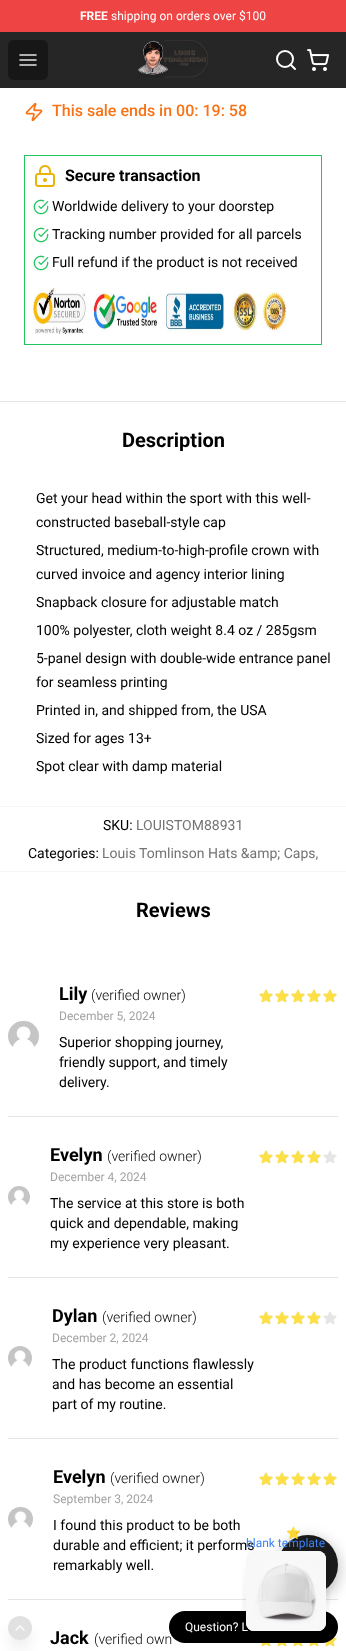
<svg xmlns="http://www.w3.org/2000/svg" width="346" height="1651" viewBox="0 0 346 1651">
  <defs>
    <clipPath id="clip1"><rect x="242" y="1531" width="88" height="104"/></clipPath>
    <clipPath id="clip2"><path d="M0 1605H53V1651H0ZM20 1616C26.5 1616 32 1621.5 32 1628C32 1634.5 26.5 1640 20 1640C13.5 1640 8 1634.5 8 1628C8 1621.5 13.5 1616 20 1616Z" clip-rule="evenodd"/></clipPath>
  </defs>
  <rect width="100%" height="100%" fill="rgb(255,255,255)"/>
  <rect x="0" y="0" width="346" height="32" fill="rgb(239,68,68)"/>
  <text x="80" y="20" font-family="Roboto" font-size="12" font-weight="bold" fill="rgb(255,255,255)">FREE</text>
  <text x="111" y="20" font-family="Roboto" font-size="12" fill="rgb(255,255,255)">shipping on orders over $100</text>
  <rect x="0" y="32" width="346" height="56" fill="rgb(38,38,38)"/>
  <rect x="8" y="40" width="40" height="40" rx="6" fill="rgb(23,23,23)"/>
  <path d="M20 55H36M20 60H36M20 65H36" fill="none" stroke="rgb(229,229,229)" stroke-width="1.5" stroke-linecap="round" stroke-linejoin="round"/>
  <image x="138" y="40" width="70" height="38" href="pic1.png"/>
  <path d="M295 69L290.5 64.5" fill="none" stroke="rgb(255,255,255)" stroke-width="2" stroke-linecap="round" stroke-linejoin="round"/>
  <circle cx="285" cy="59" r="8" fill="none" stroke="rgb(255,255,255)" stroke-width="2"/>
  <image x="307" y="49" width="23" height="22" href="pic2.png"/>
  <image x="25" y="102" width="18" height="20" href="pic3.png"/>
  <text x="52" y="116" font-family="Roboto" font-size="16" font-weight="500" fill="rgb(249,115,22)">This sale ends in 00: 19: 58</text>
  <rect x="24.5" y="155.5" width="297" height="189" fill="none" stroke="rgb(34,197,94)"/>
  <image x="35" y="165" width="20" height="22" href="pic4.png"/>
  <text x="65" y="181" font-family="Roboto" font-size="16" font-weight="bold" fill="rgb(0,0,0)">Secure transaction</text>
  <image x="33" y="199" width="16" height="16" href="pic5.png"/>
  <text x="52" y="211" font-family="Roboto" font-size="14" fill="rgb(0,0,0)">Worldwide delivery to your doorstep</text>
  <image x="33" y="227" width="16" height="16" href="pic5.png"/>
  <text x="52" y="239" font-family="Roboto" font-size="14" fill="rgb(0,0,0)">Tracking number provided for all parcels</text>
  <image x="33" y="255" width="16" height="16" href="pic5.png"/>
  <text x="52" y="267" font-family="Roboto" font-size="14" fill="rgb(0,0,0)">Full refund if the product is not received</text>
  <image x="33" y="288" width="255" height="47" href="pic6.png"/>
  <rect x="8" y="1599" width="330" height="1" fill="rgb(229,229,229)"/>
  <image x="261" y="1643" width="10" height="4" href="pic14.png"/>
  <image x="277" y="1643" width="10" height="4" href="pic14.png"/>
  <image x="293" y="1643" width="10" height="4" href="pic14.png"/>
  <image x="309" y="1643" width="10" height="4" href="pic14.png"/>
  <image x="325" y="1637" width="12" height="10" href="pic15.png"/>
  <image x="261" y="1643" width="10" height="4" href="pic16.png"/>
  <image x="277" y="1643" width="10" height="4" href="pic16.png"/>
  <image x="293" y="1643" width="10" height="4" href="pic16.png"/>
  <image x="309" y="1643" width="10" height="4" href="pic16.png"/>
  <image x="325" y="1637" width="12" height="10" href="pic17.png"/>
  <rect x="169" y="1611" width="169" height="32" rx="16" fill="rgb(0,0,0)"/>
  <rect x="278" y="1539" width="60" height="60" rx="30" fill="rgba(0,0,0,0.3)" filter="blur(7.5px)"/>
  <circle cx="308" cy="1565" r="30" fill="rgb(26,26,26)"/>
  <g clip-path="url(#clip1)">
    <rect x="252" y="1565" width="68" height="68" rx="2" fill="rgba(0,0,0,0.1)" filter="blur(5px)"/>
    <rect x="251" y="1576" width="70" height="70" rx="3" fill="rgba(0,0,0,0.1)" filter="blur(12.5px)"/>
  </g>
  <text x="53" y="1550" font-family="Roboto" font-size="14" fill="rgb(0,0,0)">durable and efficient; it performs</text>
  <rect x="246" y="1551" width="80" height="80" rx="8" fill="rgb(255,255,255)"/>
  <text x="185" y="1631" font-family="Roboto" font-size="12" fill="rgb(255,255,255)">Question? L</text>
  <image x="246" y="1551" width="80" height="80" href="pic7.png"/>
  <text x="246" y="1547" font-family="Roboto" font-size="12" fill="rgb(59,130,246)">blank template</text>
  <rect x="0" y="401" width="346" height="1" fill="rgb(229,229,229)"/>
  <text x="122" y="447" font-family="Roboto" font-size="20" font-weight="bold" fill="rgb(0,0,0)">Description</text>
  <g font-family="Roboto" font-size="14" fill="rgb(0,0,0)">
    <text>
      <tspan x="36" y="503">Get your head within the sport with this well-</tspan>
      <tspan x="36" y="527">constructed baseball-style cap</tspan>
    </text>
    <text>
      <tspan x="36" y="555">Structured, medium-to-high-profile crown with</tspan>
      <tspan x="36" y="579">curved invoice and agency interior lining</tspan>
    </text>
    <text x="36" y="607">Snapback closure for adjustable match</text>
    <text x="36" y="635">100% polyester, cloth weight 8.4 oz / 285gsm</text>
    <text>
      <tspan x="36" y="663">5-panel design with double-wide entrance panel</tspan>
      <tspan x="36" y="687">for seamless printing</tspan>
    </text>
    <text x="36" y="715">Printed in, and shipped from, the USA</text>
    <text x="36" y="743">Sized for ages 13+</text>
    <text x="36" y="771">Spot clear with damp material</text>
  </g>
  <rect x="0" y="806" width="346" height="1" fill="rgb(245,245,245)"/>
  <rect x="0" y="871" width="346" height="1" fill="rgb(245,245,245)"/>
  <text x="103" y="830" font-family="Roboto" font-size="14" fill="rgb(0,0,0)">SKU:</text>
  <text x="136" y="830" font-family="Roboto" font-size="14" fill="rgb(115,115,115)">LOUISTOM88931</text>
  <text x="28" y="858" font-family="Roboto" font-size="14" fill="rgb(0,0,0)">Categories:</text>
  <text x="102" y="858" font-family="Roboto" font-size="14" fill="rgb(115,115,115)">Louis Tomlinson Hats &amp;amp; Caps,</text>
  <text x="136" y="917" font-family="Roboto" font-size="20" font-weight="bold" fill="rgb(0,0,0)">Reviews</text>
  <rect x="8" y="1116" width="330" height="1" fill="rgb(229,229,229)"/>
  <image x="8" y="1021" width="31" height="26" href="pic8.png"/>
  <text x="59" y="1000" font-family="Roboto" font-size="18" font-weight="bold" fill="rgb(0,0,0)">Lily</text>
  <text x="91" y="1000" font-family="Roboto" font-size="14" font-weight="300" fill="rgb(0,0,0)">(verified owner)</text>
  <text x="59" y="1020" font-family="Roboto" font-size="12" fill="rgb(163,163,163)">December 5, 2024</text>
  <g font-family="Roboto" font-size="14" fill="rgb(0,0,0)">
    <text>
      <tspan x="59" y="1047">Superior shopping journey,</tspan>
      <tspan x="59" y="1067">friendly support, and timely</tspan>
      <tspan x="59" y="1087">delivery.</tspan>
    </text>
  </g>
  <image x="259" y="989" width="14" height="14" href="pic9.png"/>
  <image x="275" y="989" width="14" height="14" href="pic9.png"/>
  <image x="291" y="989" width="14" height="14" href="pic9.png"/>
  <image x="307" y="989" width="14" height="14" href="pic9.png"/>
  <image x="323" y="989" width="14" height="14" href="pic9.png"/>
  <image x="259" y="989" width="14" height="14" href="pic10.png"/>
  <image x="275" y="989" width="14" height="14" href="pic10.png"/>
  <image x="291" y="989" width="14" height="14" href="pic10.png"/>
  <image x="307" y="989" width="14" height="14" href="pic10.png"/>
  <image x="323" y="989" width="14" height="14" href="pic10.png"/>
  <rect x="8" y="1277" width="330" height="1" fill="rgb(229,229,229)"/>
  <image x="8" y="1186" width="22" height="19" href="pic11.png"/>
  <text x="50" y="1161" font-family="Roboto" font-size="18" font-weight="bold" fill="rgb(0,0,0)">Evelyn</text>
  <text x="107" y="1161" font-family="Roboto" font-size="14" font-weight="300" fill="rgb(0,0,0)">(verified owner)</text>
  <text x="50" y="1181" font-family="Roboto" font-size="12" fill="rgb(163,163,163)">December 4, 2024</text>
  <g font-family="Roboto" font-size="14" fill="rgb(0,0,0)">
    <text>
      <tspan x="50" y="1208">The service at this store is both</tspan>
      <tspan x="50" y="1228">quick and dependable, making</tspan>
      <tspan x="50" y="1248">my experience very pleasant.</tspan>
    </text>
  </g>
  <image x="259" y="1150" width="14" height="14" href="pic9.png"/>
  <image x="275" y="1150" width="14" height="14" href="pic9.png"/>
  <image x="291" y="1150" width="14" height="14" href="pic9.png"/>
  <image x="307" y="1150" width="14" height="14" href="pic9.png"/>
  <image x="323" y="1150" width="14" height="14" href="pic9.png"/>
  <image x="259" y="1150" width="14" height="14" href="pic10.png"/>
  <image x="275" y="1150" width="14" height="14" href="pic10.png"/>
  <image x="291" y="1150" width="14" height="14" href="pic10.png"/>
  <image x="307" y="1150" width="14" height="14" href="pic10.png"/>
  <rect x="8" y="1438" width="330" height="1" fill="rgb(229,229,229)"/>
  <image x="8" y="1346" width="24" height="21" href="pic12.png"/>
  <text x="52" y="1322" font-family="Roboto" font-size="18" font-weight="bold" fill="rgb(0,0,0)">Dylan</text>
  <text x="102" y="1322" font-family="Roboto" font-size="14" font-weight="300" fill="rgb(0,0,0)">(verified owner)</text>
  <text x="52" y="1342" font-family="Roboto" font-size="12" fill="rgb(163,163,163)">December 2, 2024</text>
  <g font-family="Roboto" font-size="14" fill="rgb(0,0,0)">
    <text>
      <tspan x="52" y="1369">The product functions flawlessly</tspan>
      <tspan x="52" y="1389">and has become an essential</tspan>
      <tspan x="52" y="1409">part of my routine.</tspan>
    </text>
  </g>
  <image x="259" y="1311" width="14" height="14" href="pic9.png"/>
  <image x="275" y="1311" width="14" height="14" href="pic9.png"/>
  <image x="291" y="1311" width="14" height="14" href="pic9.png"/>
  <image x="307" y="1311" width="14" height="14" href="pic9.png"/>
  <image x="323" y="1311" width="14" height="14" href="pic9.png"/>
  <image x="259" y="1311" width="14" height="14" href="pic10.png"/>
  <image x="275" y="1311" width="14" height="14" href="pic10.png"/>
  <image x="291" y="1311" width="14" height="14" href="pic10.png"/>
  <image x="307" y="1311" width="14" height="14" href="pic10.png"/>
  <image x="8" y="1507" width="25" height="21" href="pic13.png"/>
  <text x="53" y="1483" font-family="Roboto" font-size="18" font-weight="bold" fill="rgb(0,0,0)">Evelyn</text>
  <text x="110" y="1483" font-family="Roboto" font-size="14" font-weight="300" fill="rgb(0,0,0)">(verified owner)</text>
  <text x="53" y="1503" font-family="Roboto" font-size="12" fill="rgb(163,163,163)">September 3, 2024</text>
  <g font-family="Roboto" font-size="14" fill="rgb(0,0,0)">
    <text x="53" y="1530">I found this product to be both</text>
    <text x="53" y="1570">remarkably well.</text>
  </g>
  <image x="259" y="1472" width="14" height="14" href="pic9.png"/>
  <image x="275" y="1472" width="14" height="14" href="pic9.png"/>
  <image x="291" y="1472" width="14" height="14" href="pic9.png"/>
  <image x="307" y="1472" width="14" height="14" href="pic9.png"/>
  <image x="323" y="1472" width="14" height="14" href="pic9.png"/>
  <image x="259" y="1472" width="14" height="14" href="pic10.png"/>
  <image x="275" y="1472" width="14" height="14" href="pic10.png"/>
  <image x="291" y="1472" width="14" height="14" href="pic10.png"/>
  <image x="307" y="1472" width="14" height="14" href="pic10.png"/>
  <image x="323" y="1472" width="14" height="14" href="pic10.png"/>
  <text x="50" y="1644" font-family="Roboto" font-size="18" font-weight="bold" fill="rgb(0,0,0)">Jack</text>
  <text x="94" y="1644" font-family="Roboto" font-size="14" font-weight="300" fill="rgb(0,0,0)">(verified own</text>
  <text x="286" y="1537" font-family="Noto Color Emoji" font-size="12" font-weight="bold" fill="rgb(255,215,0)">⭐</text>
  <g clip-path="url(#clip2)">
    <rect x="11" y="1629" width="18" height="18" rx="9" fill="rgba(0,0,0,0.1)" filter="blur(7.5px)"/>
  </g>
  <circle cx="20" cy="1628" r="12" fill="rgba(212,212,212,0.7)"/>
  <path d="M24 1630L20 1626L16 1630" fill="none" stroke="rgb(255,255,255)" stroke-width="1.3" stroke-linecap="round" stroke-linejoin="round"/>
</svg>
